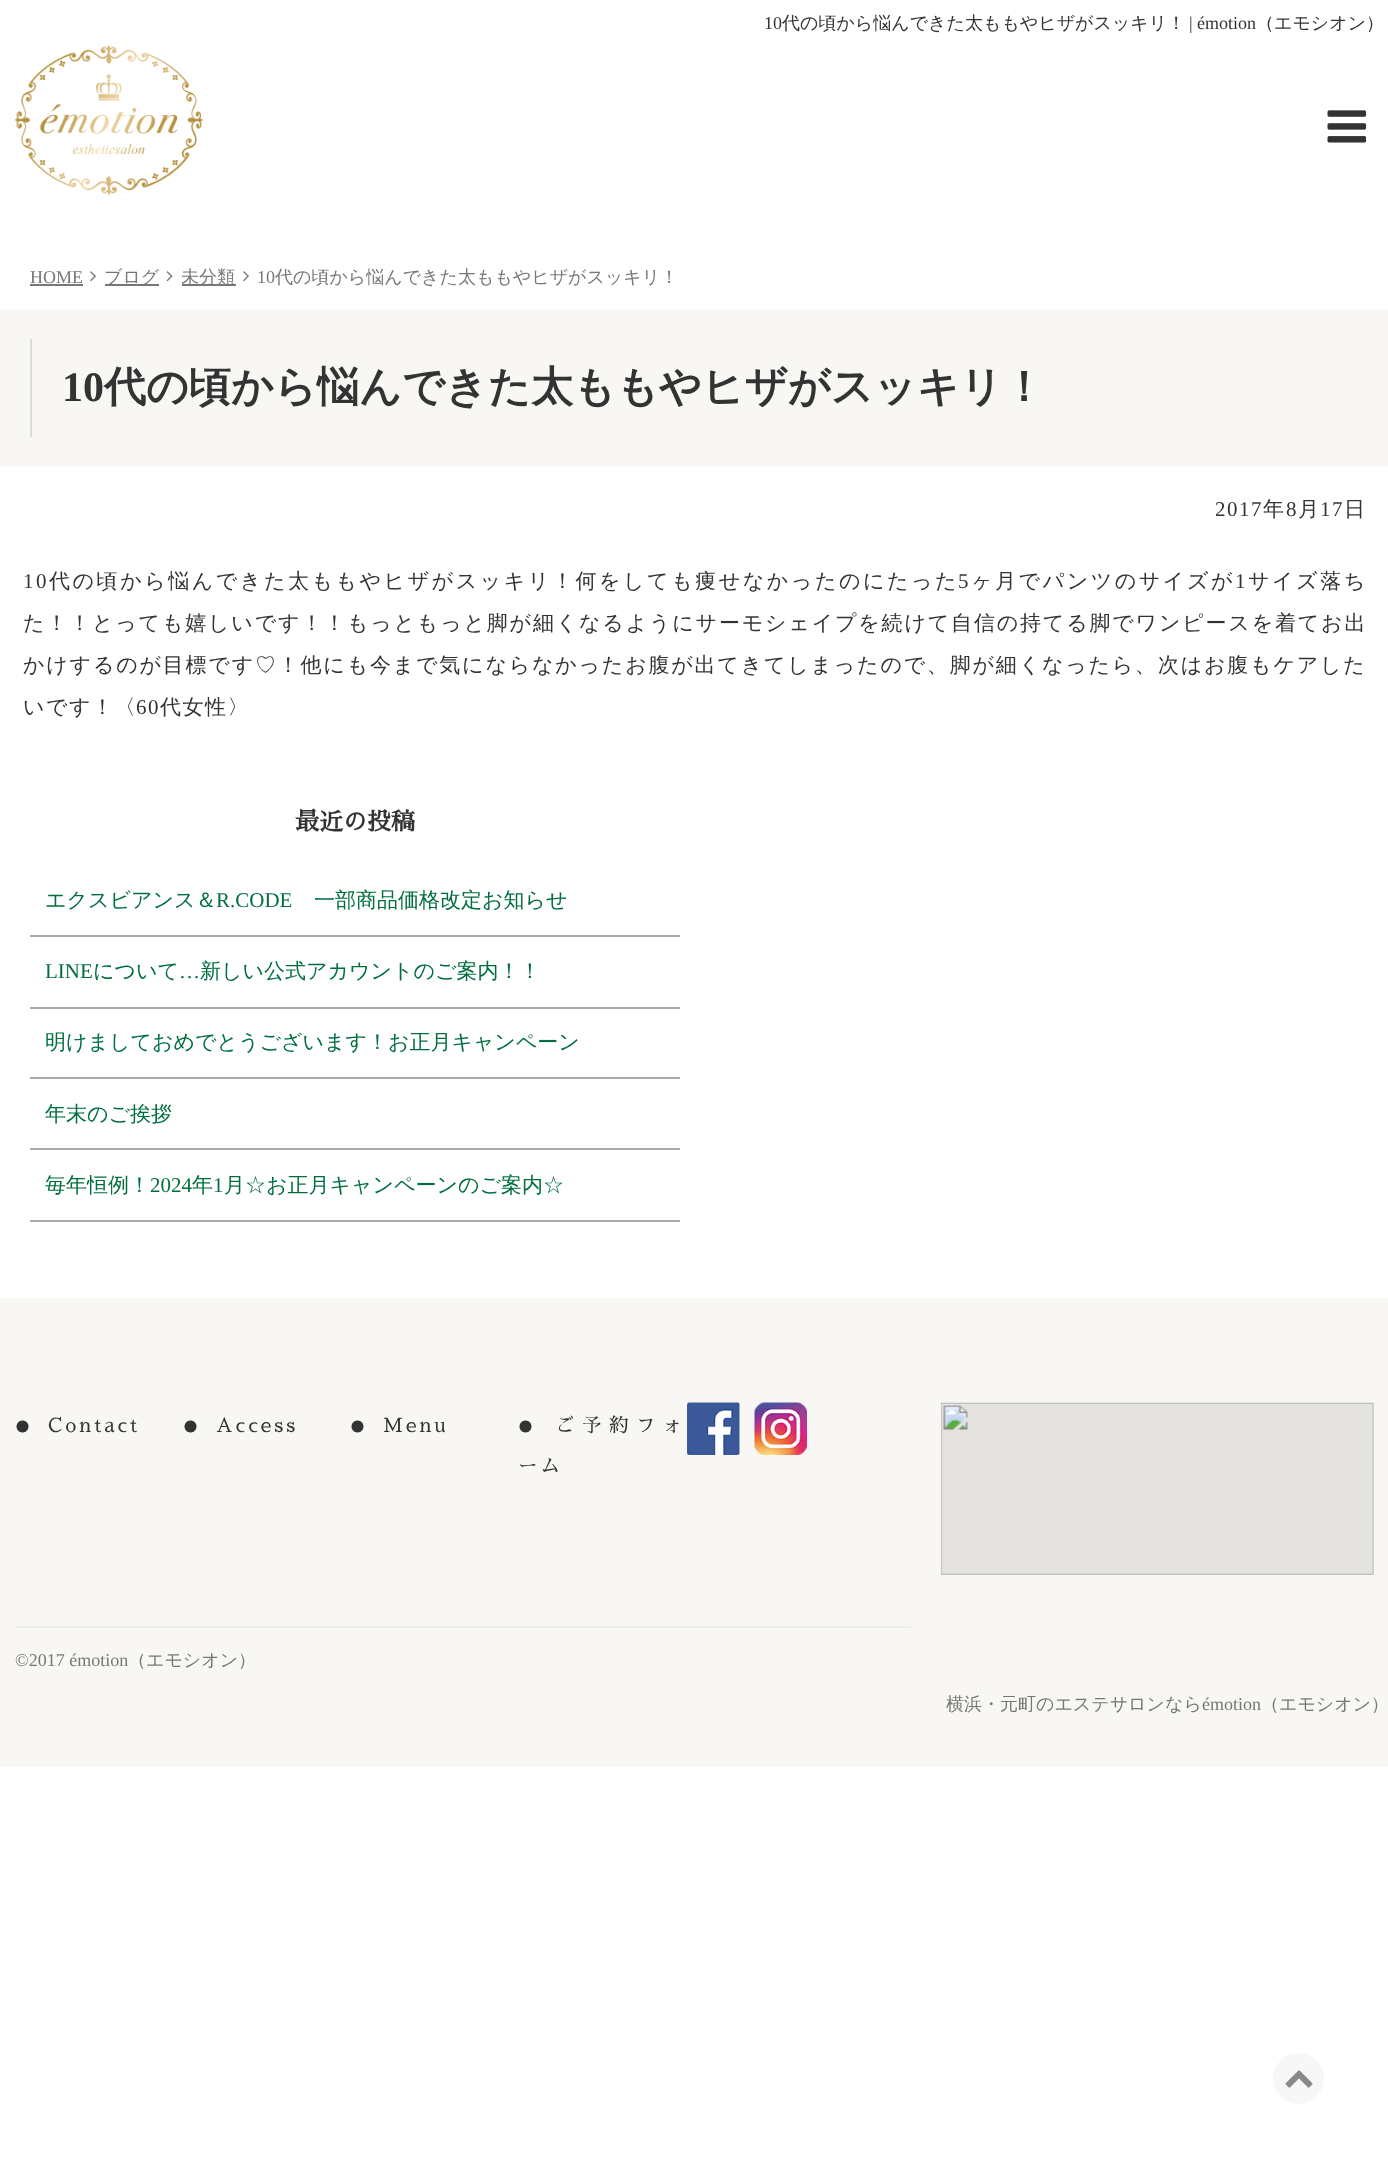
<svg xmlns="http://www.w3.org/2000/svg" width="1388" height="2169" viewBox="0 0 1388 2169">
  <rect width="100%" height="100%" fill="rgb(255,255,255)"/>
  <text x="764" y="29" font-family="Liberation Serif" font-size="18" fill="rgb(51,51,51)">10</text>
  <text x="782" y="29" font-family="WenQuanYi Zen Hei" font-size="18" font-weight="500" fill="rgb(51,51,51)">代の頃から悩んできた太ももやヒザがスッキリ！</text>
  <text x="1189" y="29" font-family="Liberation Serif" font-size="18" fill="rgb(51,51,51)">| émotion</text>
  <text x="1256" y="29" font-family="WenQuanYi Zen Hei" font-size="18" font-weight="500" fill="rgb(51,51,51)">（エモシオン）</text>
  <image x="15" y="45" width="188" height="150" href="pic1.png"/>
  <image x="1327" y="110" width="40" height="33" href="pic2.png"/>
  <text x="30" y="283" font-family="Liberation Serif" font-size="18" fill="rgb(119,119,119)">HOME</text>
  <rect x="30" y="284" width="53" height="2" fill="rgb(119,119,119)"/>
  <image x="90" y="271" width="6" height="11" href="pic3.png"/>
  <rect x="105" y="284" width="54" height="2" fill="rgb(119,119,119)"/>
  <text x="104" y="283" font-family="WenQuanYi Zen Hei" font-size="18" font-weight="500" fill="rgb(119,119,119)">ブログ</text>
  <image x="166" y="271" width="7" height="11" href="pic4.png"/>
  <rect x="182" y="284" width="54" height="2" fill="rgb(119,119,119)"/>
  <text x="181" y="283" font-family="WenQuanYi Zen Hei" font-size="18" font-weight="500" fill="rgb(119,119,119)">未分類</text>
  <image x="243" y="271" width="6" height="11" href="pic3.png"/>
  <text x="257" y="283" font-family="Liberation Serif" font-size="18" fill="rgb(119,119,119)">10</text>
  <text x="275" y="283" font-family="WenQuanYi Zen Hei" font-size="18" font-weight="500" fill="rgb(119,119,119)">代の頃から悩んできた太ももやヒザがスッキリ！</text>
  <rect x="0" y="309" width="1388" height="158" fill="rgb(248,247,244)"/>
  <rect x="30" y="339" width="2" height="98" fill="rgb(219,219,219)"/>
  <text x="62" y="401" font-family="Liberation Serif" font-size="42" font-weight="bold" fill="rgb(51,51,51)">10</text>
  <text x="104" y="401" font-family="WenQuanYi Zen Hei" font-size="42" font-weight="bold" fill="rgb(51,51,51)">代の頃から悩んできた太ももやヒザがスッキリ！</text>
  <text x="1215" y="516" font-family="Liberation Serif" font-size="21" letter-spacing="1.5" fill="rgb(51,51,51)">2017</text>
  <text x="1263" y="516" font-family="WenQuanYi Zen Hei" font-size="21" font-weight="500" letter-spacing="1.5" fill="rgb(51,51,51)">年</text>
  <text x="1286" y="516" font-family="Liberation Serif" font-size="21" letter-spacing="1.5" fill="rgb(51,51,51)">8</text>
  <text x="1298" y="516" font-family="WenQuanYi Zen Hei" font-size="21" font-weight="500" letter-spacing="1.5" fill="rgb(51,51,51)">月</text>
  <text x="1320" y="516" font-family="Liberation Serif" font-size="21" letter-spacing="1.5" fill="rgb(51,51,51)">17</text>
  <text x="1344" y="516" font-family="WenQuanYi Zen Hei" font-size="21" font-weight="500" letter-spacing="1.5" fill="rgb(51,51,51)">日</text>
  <text x="23" y="588" font-family="Liberation Serif" font-size="21" letter-spacing="2.55" fill="rgb(51,51,51)">10</text>
  <text x="49" y="588" font-family="WenQuanYi Zen Hei" font-size="21" font-weight="500" letter-spacing="2.55" fill="rgb(51,51,51)">代の頃から悩んできた太ももやヒザがスッキリ！何をしても痩せなかったのにたった</text>
  <text x="958" y="588" font-family="Liberation Serif" font-size="21" letter-spacing="2.55" fill="rgb(51,51,51)">5</text>
  <text x="971" y="588" font-family="WenQuanYi Zen Hei" font-size="21" font-weight="500" letter-spacing="2.55" fill="rgb(51,51,51)">ヶ月でパンツのサイズが</text>
  <text x="1235" y="588" font-family="Liberation Serif" font-size="21" letter-spacing="2.55" fill="rgb(51,51,51)">1</text>
  <text x="1248" y="588" font-family="WenQuanYi Zen Hei" font-size="21" font-weight="500" letter-spacing="2.55" fill="rgb(51,51,51)">サイズ落ち</text>
  <text x="23" y="630" font-family="WenQuanYi Zen Hei" font-size="21" font-weight="500" letter-spacing="1.82" fill="rgb(51,51,51)">た！！とっても嬉しいです！！もっともっと脚が細くなるようにサーモシェイプを続けて自信の持てる脚でワンピースを着てお出</text>
  <text x="23" y="672" font-family="WenQuanYi Zen Hei" font-size="21" font-weight="500" letter-spacing="1.8" fill="rgb(51,51,51)">かけするのが目標です♡！他にも今まで気にならなかったお腹が出てきてしまったので、脚が細くなったら、次はお腹もケアした</text>
  <text x="23" y="714" font-family="WenQuanYi Zen Hei" font-size="21" font-weight="500" letter-spacing="1.5" fill="rgb(51,51,51)">いです！〈</text>
  <text x="136" y="714" font-family="Liberation Serif" font-size="21" letter-spacing="1.5" fill="rgb(51,51,51)">60</text>
  <text x="160" y="714" font-family="WenQuanYi Zen Hei" font-size="21" font-weight="500" letter-spacing="1.5" fill="rgb(51,51,51)">代女性〉</text>
  <text x="295" y="830" font-family="Sawarabi Mincho" font-size="24" font-weight="bold" fill="rgb(51,51,51)">最近の投稿</text>
  <rect x="30" y="935" width="650" height="2" fill="rgb(170,170,170)"/>
  <text x="45" y="907" font-family="WenQuanYi Zen Hei" font-size="21" font-weight="500" fill="rgb(0,110,63)">エクスビアンス＆</text>
  <text x="216" y="907" font-family="Liberation Serif" font-size="21" fill="rgb(0,110,63)">R.CODE</text>
  <text x="314" y="907" font-family="WenQuanYi Zen Hei" font-size="21" font-weight="500" fill="rgb(0,110,63)">一部商品価格改定お知らせ</text>
  <rect x="30" y="1007" width="650" height="2" fill="rgb(170,170,170)"/>
  <text x="45" y="978" font-family="Liberation Serif" font-size="21" fill="rgb(0,110,63)">LINE</text>
  <text x="93" y="978" font-family="WenQuanYi Zen Hei" font-size="21" font-weight="500" fill="rgb(0,110,63)">について</text>
  <text x="179" y="978" font-family="Liberation Serif" font-size="21" fill="rgb(0,110,63)">…</text>
  <text x="200" y="978" font-family="WenQuanYi Zen Hei" font-size="21" font-weight="500" fill="rgb(0,110,63)">新しい公式アカウントのご案内！！</text>
  <rect x="30" y="1077" width="650" height="2" fill="rgb(170,170,170)"/>
  <text x="45" y="1049" font-family="WenQuanYi Zen Hei" font-size="21" font-weight="500" fill="rgb(0,110,63)">明けましておめでとうございます！お正月キャンペーン</text>
  <rect x="30" y="1148" width="650" height="2" fill="rgb(170,170,170)"/>
  <text x="45" y="1121" font-family="WenQuanYi Zen Hei" font-size="21" font-weight="500" fill="rgb(0,110,63)">年末のご挨拶</text>
  <rect x="30" y="1220" width="650" height="2" fill="rgb(170,170,170)"/>
  <text x="45" y="1192" font-family="WenQuanYi Zen Hei" font-size="21" font-weight="500" fill="rgb(0,110,63)">毎年恒例！</text>
  <text x="150" y="1192" font-family="Liberation Serif" font-size="21" fill="rgb(0,110,63)">2024</text>
  <text x="192" y="1192" font-family="WenQuanYi Zen Hei" font-size="21" font-weight="500" fill="rgb(0,110,63)">年</text>
  <text x="213" y="1192" font-family="Liberation Serif" font-size="21" fill="rgb(0,110,63)">1</text>
  <text x="224" y="1192" font-family="WenQuanYi Zen Hei" font-size="21" font-weight="500" fill="rgb(0,110,63)">月☆お正月キャンペーンのご案内☆</text>
  <rect x="0" y="1298" width="1388" height="469" fill="rgb(248,247,244)"/>
  <rect x="15" y="1626" width="896" height="2" fill="rgb(238,238,238)"/>
  <text x="15" y="1432" font-family="Sawarabi Mincho" font-size="15" letter-spacing="3" fill="rgb(51,51,51)">●</text>
  <text x="48" y="1432" font-family="Sawarabi Mincho" font-size="19.5" letter-spacing="3" fill="rgb(51,51,51)">Contact</text>
  <text x="183" y="1432" font-family="Sawarabi Mincho" font-size="15" letter-spacing="3" fill="rgb(51,51,51)">●</text>
  <text x="216" y="1432" font-family="Sawarabi Mincho" font-size="19.5" letter-spacing="3" fill="rgb(51,51,51)">Access</text>
  <text x="350" y="1432" font-family="Sawarabi Mincho" font-size="15" letter-spacing="3" fill="rgb(51,51,51)">●</text>
  <text x="383" y="1432" font-family="Sawarabi Mincho" font-size="19.5" letter-spacing="3" fill="rgb(51,51,51)">Menu</text>
  <text x="518" y="1432" font-family="Sawarabi Mincho" font-size="15" letter-spacing="3" fill="rgb(51,51,51)">●</text>
  <text x="555" y="1432" font-family="Sawarabi Mincho" font-size="19.5" letter-spacing="7.5" fill="rgb(51,51,51)">ご予約フォ</text>
  <text x="518" y="1473" font-family="Sawarabi Mincho" font-size="19.5" letter-spacing="3" fill="rgb(51,51,51)">ーム</text>
  <image x="687" y="1402" width="53" height="53" href="pic5.png"/>
  <image x="754" y="1402" width="53" height="53" href="pic6.png"/>
  <image x="940" y="1402" width="434" height="173" href="pic7.png"/>
  <text x="15" y="1666" font-family="Liberation Serif" font-size="18" fill="rgb(119,119,119)">©2017 émotion</text>
  <g font-family="WenQuanYi Zen Hei" font-size="18" font-weight="500" fill="rgb(119,119,119)">
    <text x="128" y="1666">（エモシオン）</text>
    <text x="946" y="1710">横浜・元町のエステサロンなら</text>
  </g>
  <text x="1202" y="1710" font-family="Liberation Serif" font-size="18" fill="rgb(119,119,119)">émotion</text>
  <text x="1261" y="1710" font-family="WenQuanYi Zen Hei" font-size="18" font-weight="500" fill="rgb(119,119,119)">（エモシオン）</text>
  <circle cx="1298.5" cy="2078.5" r="28" fill="rgb(247,247,247)" stroke="rgb(255,255,255)" stroke-width="5"/>
  <image x="1285" y="2070" width="28" height="18" href="pic8.png"/>
</svg>
